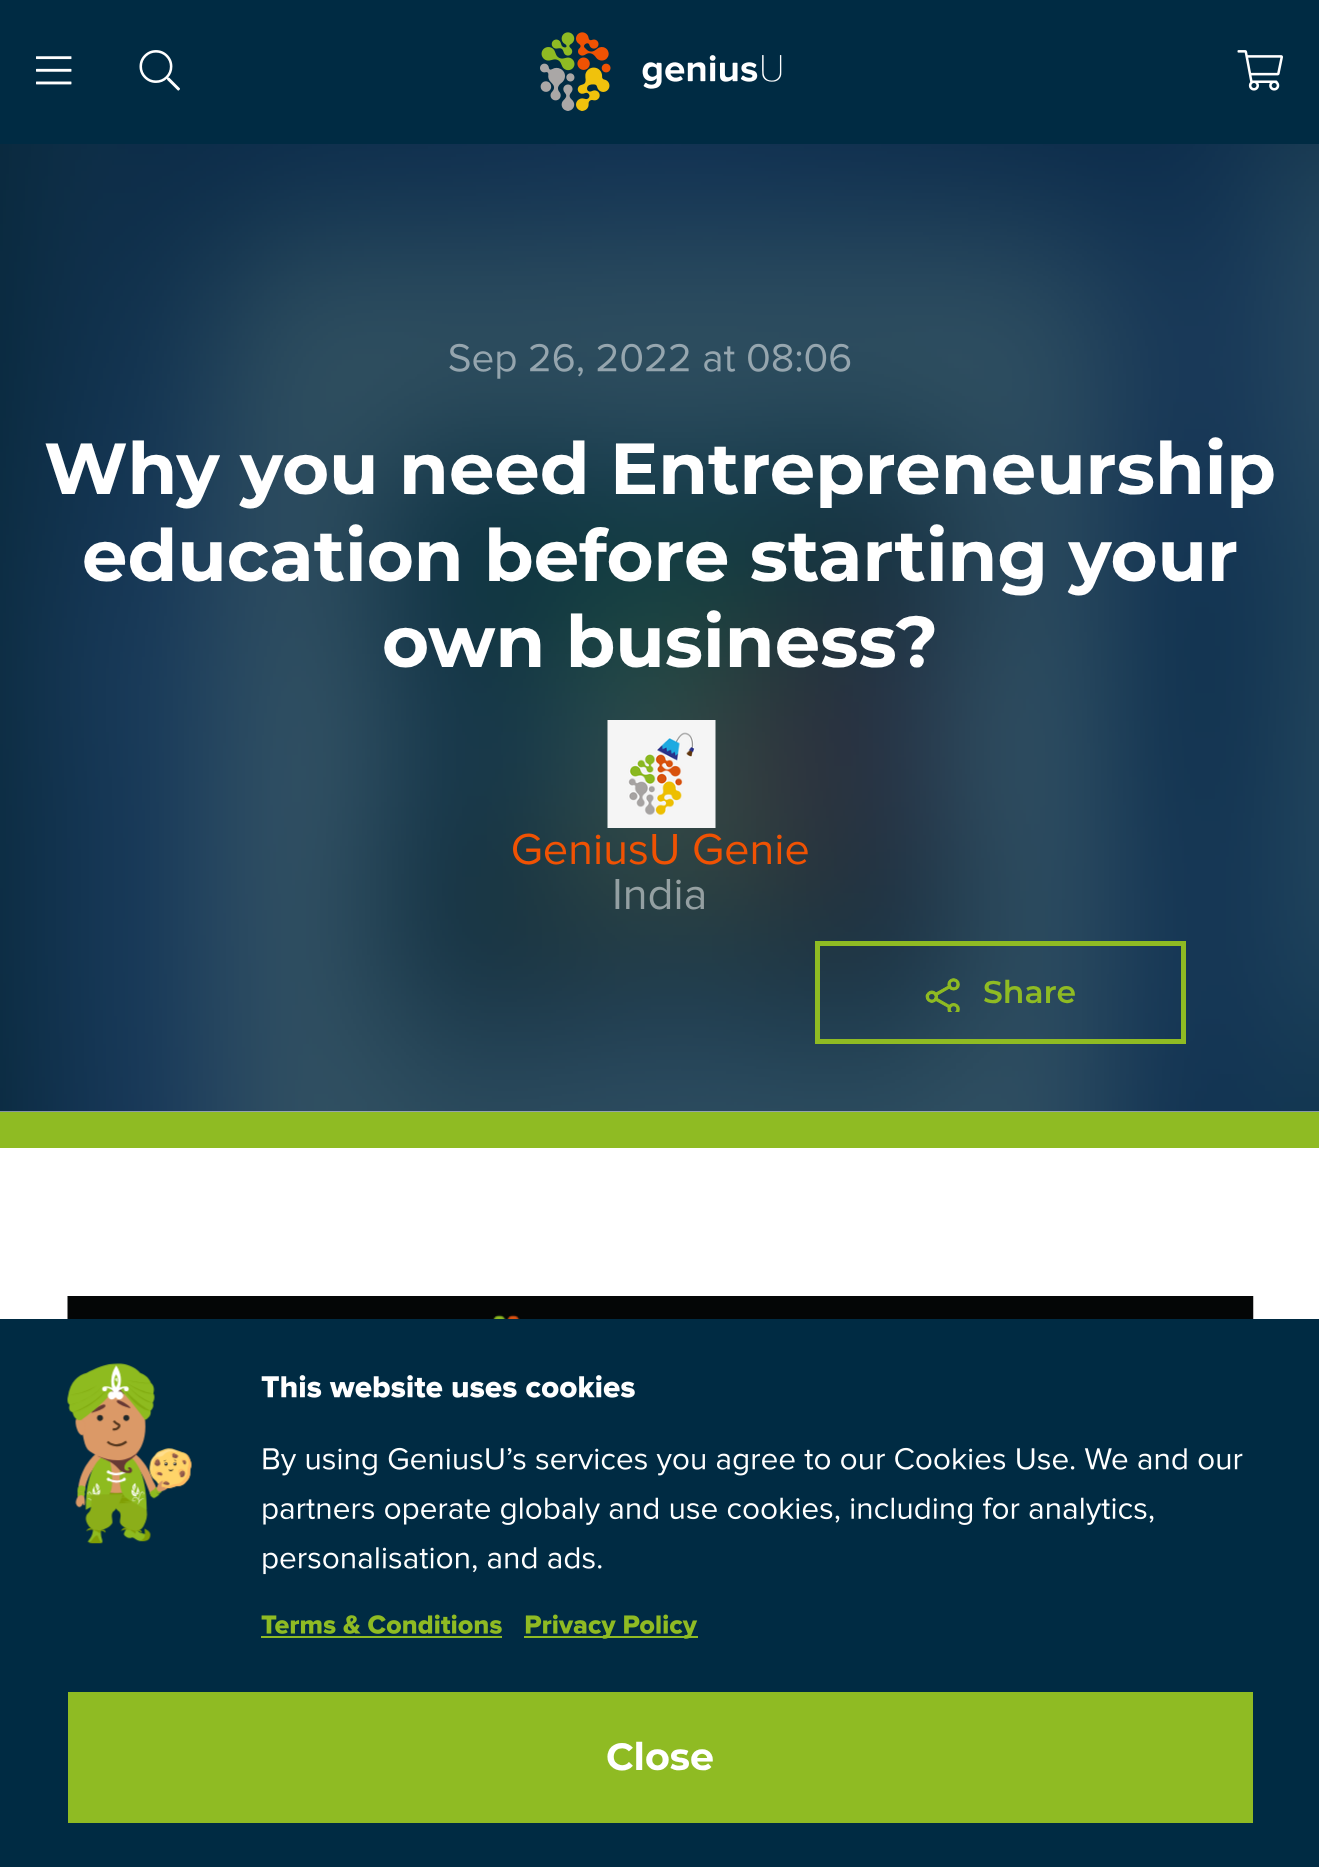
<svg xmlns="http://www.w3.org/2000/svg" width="1319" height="1867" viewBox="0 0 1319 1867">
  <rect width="100%" height="100%" fill="rgb(255,255,255)"/>
  <rect x="0" y="0" width="1319" height="144" fill="rgb(0,43,67)"/>
  <image x="36" y="56" width="36" height="29" href="pic1.png"/>
  <image x="139" y="50" width="41" height="41" href="pic2.png"/>
  <image x="540" y="32" width="242" height="79" href="pic3.png"/>
  <image x="1237" y="50" width="46" height="41" href="pic4.png"/>
  <image x="0" y="144" width="1319" height="968" href="pic5.png"/>
  <image x="449" y="343" width="402" height="36" href="pic6.png"/>
  <g font-family="Montserrat" font-size="72" font-weight="bold" fill="rgb(255,255,255)">
    <text x="44" y="494">Why you need Entrepreneurship</text>
    <text x="82" y="581">education before starting your</text>
    <text x="382" y="667">own business?</text>
  </g>
  <image x="607" y="720" width="109" height="108" href="pic7.png"/>
  <image x="513" y="833" width="295" height="32" href="pic8.png"/>
  <image x="615" y="879" width="89" height="31" href="pic9.png"/>
  <rect x="817.5" y="943.5" width="366" height="98" fill="none" stroke="rgb(143,187,35)" stroke-width="5"/>
  <image x="925" y="978" width="35" height="34" href="pic10.png"/>
  <text x="983" y="1003" font-family="Montserrat" font-size="31.5" font-weight="600" fill="rgb(143,187,35)">Share</text>
  <rect x="0" y="1112" width="1319" height="36" fill="rgb(143,187,35)"/>
  <image x="67" y="1296" width="1187" height="23" href="pic11.png"/>
  <rect x="0" y="1319" width="1319" height="548" fill="rgb(0,43,67)"/>
  <image x="67" y="1363" width="125" height="181" href="pic12.png"/>
  <image x="261" y="1375" width="374" height="23" href="pic13.png"/>
  <image x="263" y="1447" width="980" height="29" href="pic14.png"/>
  <image x="263" y="1497" width="891" height="28" href="pic15.png"/>
  <image x="263" y="1547" width="339" height="28" href="pic16.png"/>
  <image x="261" y="1614" width="241" height="20" href="pic17.png"/>
  <rect x="261" y="1636" width="241" height="2" fill="rgb(143,187,35)"/>
  <rect x="524" y="1636" width="174" height="2" fill="rgb(143,187,35)"/>
  <image x="525" y="1614" width="173" height="25" href="pic18.png"/>
  <rect x="68" y="1692" width="1185" height="131" fill="rgb(143,187,35)"/>
  <text x="606" y="1770" font-family="Montserrat" font-size="38" font-weight="bold" fill="rgb(255,255,255)">Close</text>
</svg>
